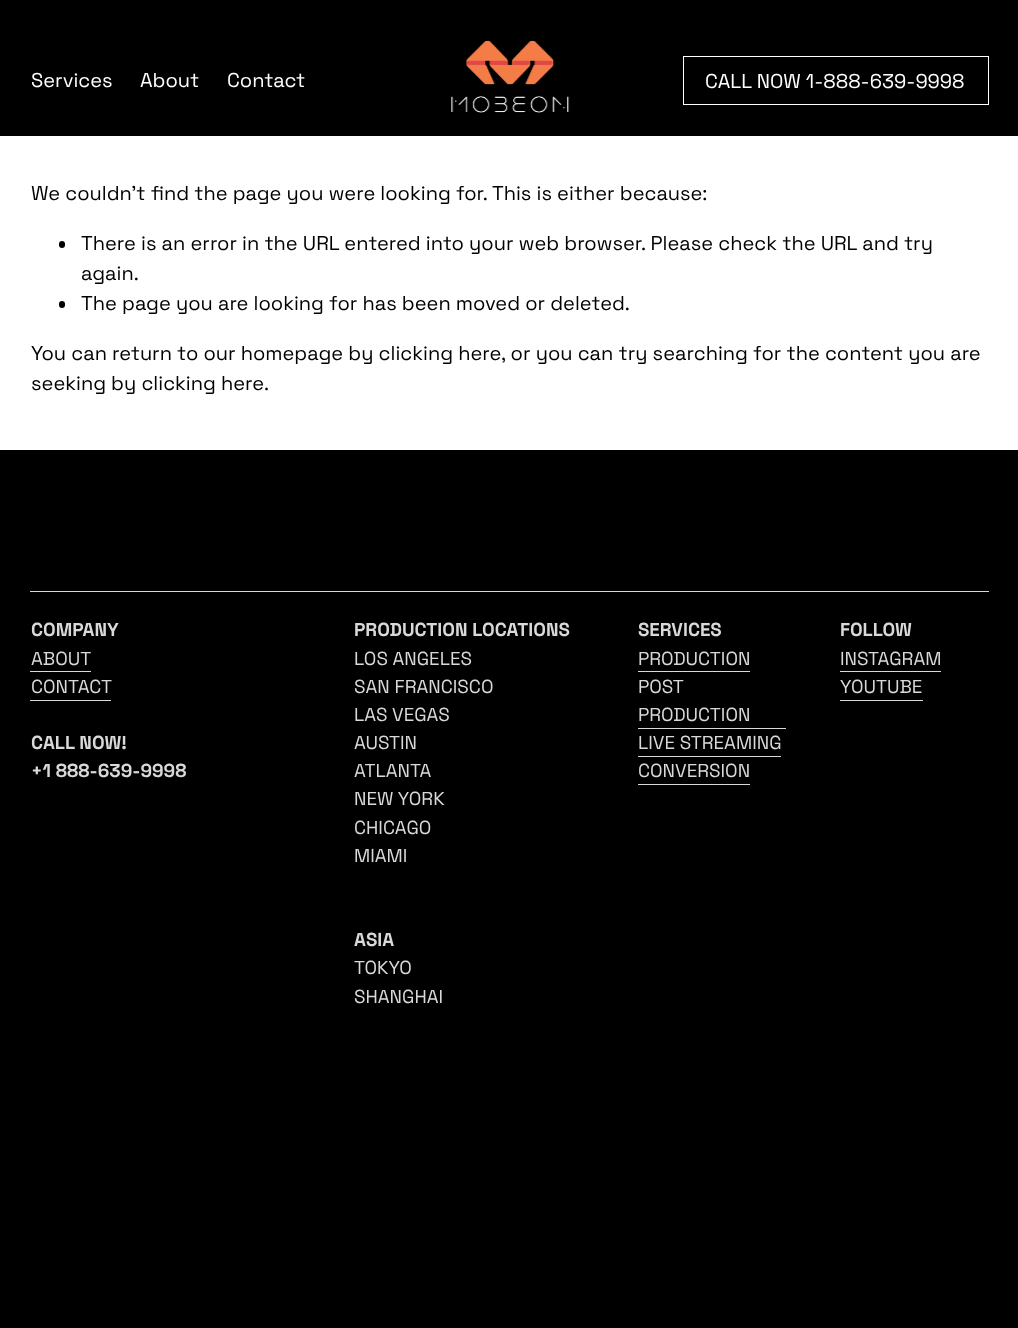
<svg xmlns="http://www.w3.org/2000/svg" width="1018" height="1328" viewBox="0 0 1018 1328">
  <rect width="100%" height="100%" fill="rgb(255,255,255)"/>
  <rect x="0" y="0" width="1018" height="136" fill="rgb(0,0,0)"/>
  <g font-family="Space Grotesk" font-size="20" fill="rgb(255,255,255)">
    <text x="31" y="87">Services</text>
    <text x="140" y="87">About</text>
    <text x="227" y="87">Contact</text>
  </g>
  <image x="451" y="40" width="119" height="73" href="pic1.png"/>
  <rect x="683.5" y="56.5" width="305" height="48" fill="none" stroke="rgb(255,255,255)"/>
  <text x="705" y="88" font-family="Space Grotesk" font-size="20" fill="rgb(255,255,255)">CALL NOW 1-888-639-9998</text>
  <text x="31" y="200" font-family="Space Grotesk" font-size="20" fill="rgb(0,0,0)">We couldn't find the page you were looking for. This is either because:</text>
  <rect x="59" y="241" width="6" height="7" rx="3" fill="rgb(0,0,0)"/>
  <g font-family="Space Grotesk" font-size="20" fill="rgb(0,0,0)">
    <text>
      <tspan x="81" y="250">There is an error in the URL entered into your web browser. Please check the URL and try</tspan>
      <tspan x="81" y="280">again.</tspan>
    </text>
  </g>
  <rect x="59" y="301" width="6" height="7" rx="3" fill="rgb(0,0,0)"/>
  <g font-family="Space Grotesk" font-size="20" fill="rgb(0,0,0)">
    <text x="81" y="310">The page you are looking for has been moved or deleted.</text>
    <text>
      <tspan x="31" y="360">You can return to our homepage by clicking here, or you can try searching for the content you are</tspan>
      <tspan x="31" y="390">seeking by clicking here.</tspan>
    </text>
  </g>
  <rect x="0" y="450" width="1018" height="878" fill="rgb(0,0,0)"/>
  <rect x="30" y="591" width="959" height="1" fill="rgb(217,217,217)"/>
  <text x="31" y="636" font-family="Space Grotesk" font-size="18.75" font-weight="bold" fill="rgb(217,217,217)">COMPANY</text>
  <rect x="30" y="671" width="61" height="1" fill="rgb(217,217,217)"/>
  <text x="31" y="665" font-family="Space Grotesk" font-size="18.75" fill="rgb(217,217,217)">ABOUT</text>
  <rect x="30" y="700" width="81" height="1" fill="rgb(217,217,217)"/>
  <text x="31" y="693" font-family="Space Grotesk" font-size="18.75" fill="rgb(217,217,217)">CONTACT</text>
  <g font-family="Space Grotesk" font-size="18.75" font-weight="bold" fill="rgb(217,217,217)">
    <text>
      <tspan x="31" y="749">CALL NOW!</tspan>
      <tspan x="31" y="777">+1 888-639-9998</tspan>
    </text>
    <text x="354" y="636">PRODUCTION LOCATIONS</text>
  </g>
  <g font-family="Space Grotesk" font-size="18.75" fill="rgb(217,217,217)">
    <text>
      <tspan x="354" y="665">LOS ANGELES</tspan>
      <tspan x="354" y="693">SAN FRANCISCO</tspan>
      <tspan x="354" y="721">LAS VEGAS</tspan>
      <tspan x="354" y="749">AUSTIN</tspan>
      <tspan x="354" y="777">ATLANTA</tspan>
      <tspan x="354" y="805">NEW YORK</tspan>
      <tspan x="354" y="834">CHICAGO</tspan>
      <tspan x="354" y="862">MIAMI</tspan>
    </text>
  </g>
  <text x="354" y="946" font-family="Space Grotesk" font-size="18.75" font-weight="bold" fill="rgb(217,217,217)">ASIA</text>
  <g font-family="Space Grotesk" font-size="18.75" fill="rgb(217,217,217)">
    <text>
      <tspan x="354" y="974">TOKYO</tspan>
      <tspan x="354" y="1003">SHANGHAI</tspan>
    </text>
  </g>
  <text x="638" y="636" font-family="Space Grotesk" font-size="18.75" font-weight="bold" fill="rgb(217,217,217)">SERVICES</text>
  <rect x="638" y="671" width="112" height="1" fill="rgb(217,217,217)"/>
  <text x="638" y="665" font-family="Space Grotesk" font-size="18.75" fill="rgb(217,217,217)">PRODUCTION</text>
  <rect x="638" y="728" width="148" height="1" fill="rgb(217,217,217)"/>
  <g font-family="Space Grotesk" font-size="18.75" fill="rgb(217,217,217)">
    <text>
      <tspan x="638" y="693">POST</tspan>
      <tspan x="638" y="721">PRODUCTION</tspan>
    </text>
  </g>
  <rect x="638" y="756" width="143" height="1" fill="rgb(217,217,217)"/>
  <text x="638" y="749" font-family="Space Grotesk" font-size="18.75" fill="rgb(217,217,217)">LIVE STREAMING</text>
  <rect x="638" y="784" width="112" height="1" fill="rgb(217,217,217)"/>
  <text x="638" y="777" font-family="Space Grotesk" font-size="18.75" fill="rgb(217,217,217)">CONVERSION</text>
  <text x="840" y="636" font-family="Space Grotesk" font-size="18.75" font-weight="bold" fill="rgb(217,217,217)">FOLLOW</text>
  <rect x="840" y="671" width="101" height="1" fill="rgb(217,217,217)"/>
  <text x="840" y="665" font-family="Space Grotesk" font-size="18.75" fill="rgb(217,217,217)">INSTAGRAM</text>
  <rect x="840" y="700" width="83" height="1" fill="rgb(217,217,217)"/>
  <text x="840" y="693" font-family="Space Grotesk" font-size="18.75" fill="rgb(217,217,217)">YOUTUBE</text>
</svg>
